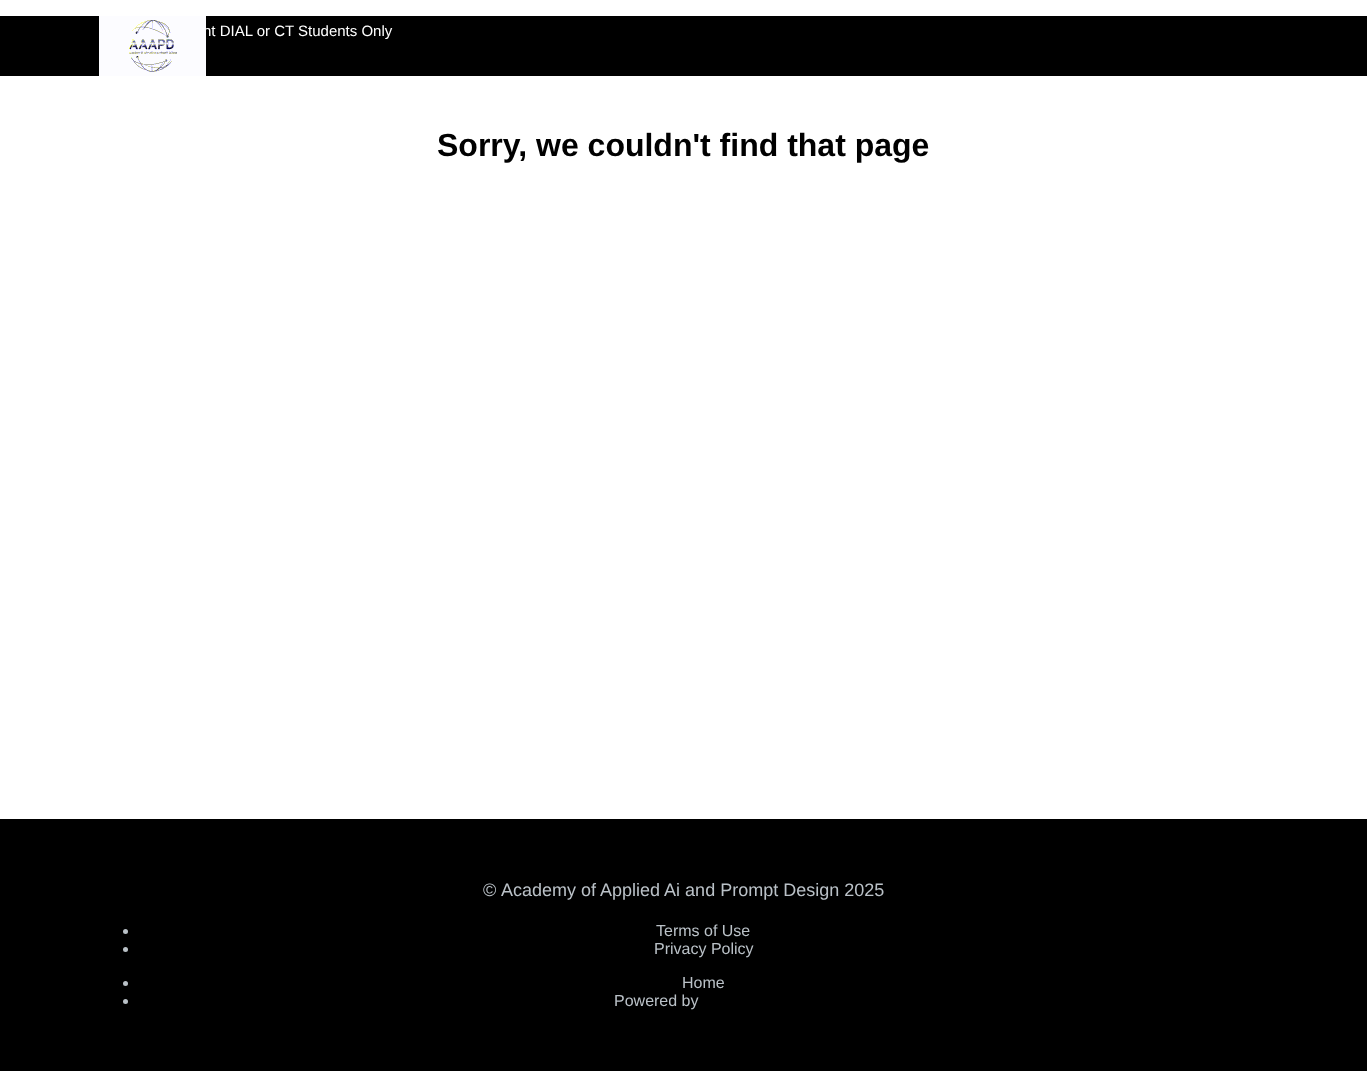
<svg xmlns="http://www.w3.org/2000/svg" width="1367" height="1071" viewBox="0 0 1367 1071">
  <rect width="100%" height="100%" fill="rgb(255,255,255)"/>
  <rect x="0" y="16" width="1367" height="60" fill="rgb(0,0,0)"/>
  <text x="203" y="36" font-family="Liberation Sans" font-size="15" fill="rgb(255,255,255)">nt DIAL or CT Students Only</text>
  <image x="99" y="16" width="107" height="60" href="pic1.png"/>
  <text x="437" y="156" font-family="Liberation Sans" font-size="32" font-weight="bold" fill="rgb(0,0,0)">Sorry, we couldn't find that page</text>
  <rect x="0" y="819" width="1367" height="252" fill="rgb(0,0,0)"/>
  <g font-family="Liberation Sans" font-size="18" fill="rgb(186,193,199)">
    <text x="483" y="896">©</text>
    <text x="501" y="896">Academy of Applied Ai and Prompt Design 2025</text>
  </g>
  <circle cx="125.5" cy="931.5" r="2.5" fill="rgb(186,193,199)"/>
  <text x="656" y="936" font-family="Liberation Sans" font-size="16" fill="rgb(186,193,199)">Terms of Use</text>
  <circle cx="125.5" cy="949.5" r="2.5" fill="rgb(186,193,199)"/>
  <text x="654" y="954" font-family="Liberation Sans" font-size="16" fill="rgb(186,193,199)">Privacy Policy</text>
  <circle cx="125.5" cy="983.5" r="2.5" fill="rgb(186,193,199)"/>
  <text x="682" y="988" font-family="Liberation Sans" font-size="16" fill="rgb(186,193,199)">Home</text>
  <circle cx="125.5" cy="1001.5" r="2.5" fill="rgb(186,193,199)"/>
  <text x="614" y="1006" font-family="Liberation Sans" font-size="16" fill="rgb(186,193,199)">Powered by</text>
</svg>
